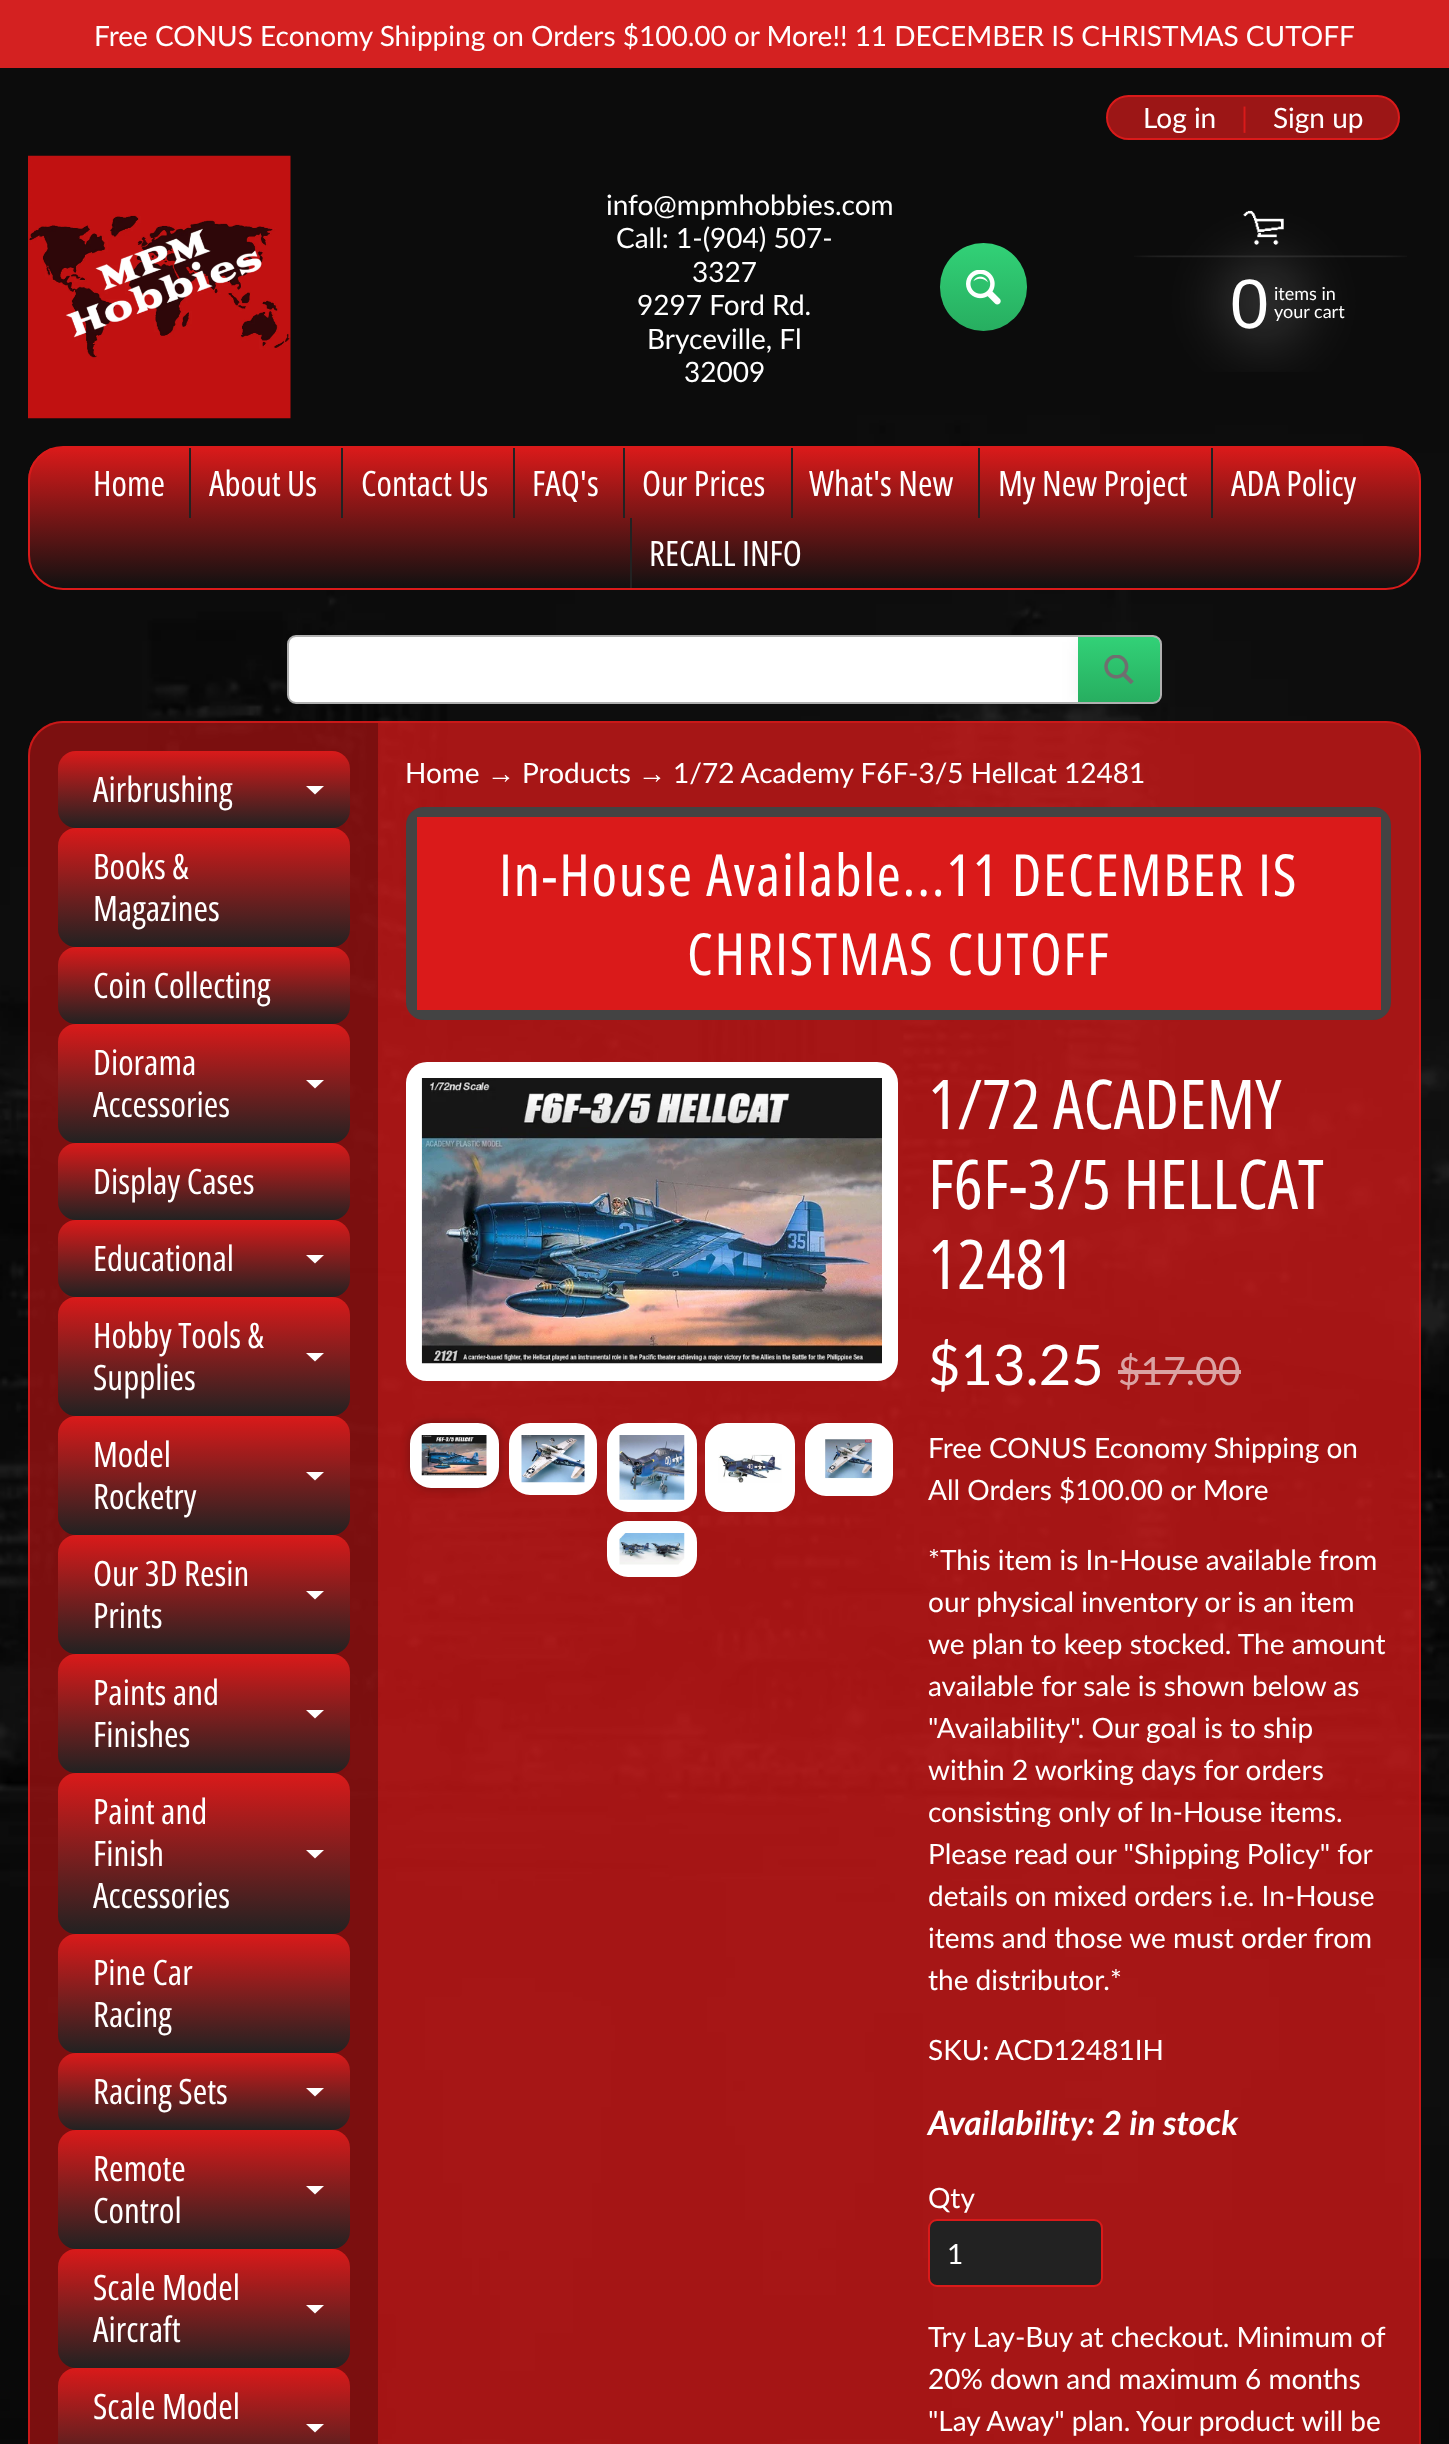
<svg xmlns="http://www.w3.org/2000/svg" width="1449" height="2444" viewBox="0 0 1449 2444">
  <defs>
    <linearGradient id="g1" gradientUnits="userSpaceOnUse" x1="984" y1="243" x2="984" y2="331"><stop offset="0" stop-color="rgb(50,209,119)"/><stop offset="1" stop-color="rgb(39,174,96)"/></linearGradient>
    <clipPath id="clip1"><rect x="28" y="446" width="1393" height="144" rx="35"/></clipPath>
    <linearGradient id="g2" gradientUnits="userSpaceOnUse" x1="725" y1="448" x2="725" y2="588"><stop offset="0" stop-color="rgb(218,26,26)"/><stop offset="1" stop-color="rgb(17,17,17)"/></linearGradient>
    <clipPath id="clip2"><rect x="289" y="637" width="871" height="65" rx="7"/></clipPath>
    <linearGradient id="g3" gradientUnits="userSpaceOnUse" x1="1119" y1="637" x2="1119" y2="702"><stop offset="0" stop-color="rgb(50,209,119)"/><stop offset="1" stop-color="rgb(39,174,96)"/></linearGradient>
    <linearGradient id="g4" gradientUnits="userSpaceOnUse" x1="204" y1="751" x2="204" y2="828"><stop offset="0" stop-color="rgb(218,26,26)"/><stop offset="1" stop-color="rgb(34,34,34)"/></linearGradient>
    <linearGradient id="g5" gradientUnits="userSpaceOnUse" x1="204" y1="828" x2="204" y2="947"><stop offset="0" stop-color="rgb(218,26,26)"/><stop offset="1" stop-color="rgb(34,34,34)"/></linearGradient>
    <linearGradient id="g6" gradientUnits="userSpaceOnUse" x1="204" y1="947" x2="204" y2="1024"><stop offset="0" stop-color="rgb(218,26,26)"/><stop offset="1" stop-color="rgb(34,34,34)"/></linearGradient>
    <linearGradient id="g7" gradientUnits="userSpaceOnUse" x1="204" y1="1024" x2="204" y2="1143"><stop offset="0" stop-color="rgb(218,26,26)"/><stop offset="1" stop-color="rgb(34,34,34)"/></linearGradient>
    <linearGradient id="g8" gradientUnits="userSpaceOnUse" x1="204" y1="1143" x2="204" y2="1220"><stop offset="0" stop-color="rgb(218,26,26)"/><stop offset="1" stop-color="rgb(34,34,34)"/></linearGradient>
    <linearGradient id="g9" gradientUnits="userSpaceOnUse" x1="204" y1="1220" x2="204" y2="1297"><stop offset="0" stop-color="rgb(218,26,26)"/><stop offset="1" stop-color="rgb(34,34,34)"/></linearGradient>
    <linearGradient id="g10" gradientUnits="userSpaceOnUse" x1="204" y1="1297" x2="204" y2="1416"><stop offset="0" stop-color="rgb(218,26,26)"/><stop offset="1" stop-color="rgb(34,34,34)"/></linearGradient>
    <linearGradient id="g11" gradientUnits="userSpaceOnUse" x1="204" y1="1416" x2="204" y2="1535"><stop offset="0" stop-color="rgb(218,26,26)"/><stop offset="1" stop-color="rgb(34,34,34)"/></linearGradient>
    <linearGradient id="g12" gradientUnits="userSpaceOnUse" x1="204" y1="1535" x2="204" y2="1654"><stop offset="0" stop-color="rgb(218,26,26)"/><stop offset="1" stop-color="rgb(34,34,34)"/></linearGradient>
    <linearGradient id="g13" gradientUnits="userSpaceOnUse" x1="204" y1="1654" x2="204" y2="1773"><stop offset="0" stop-color="rgb(218,26,26)"/><stop offset="1" stop-color="rgb(34,34,34)"/></linearGradient>
    <linearGradient id="g14" gradientUnits="userSpaceOnUse" x1="204" y1="1773" x2="204" y2="1934"><stop offset="0" stop-color="rgb(218,26,26)"/><stop offset="1" stop-color="rgb(34,34,34)"/></linearGradient>
    <linearGradient id="g15" gradientUnits="userSpaceOnUse" x1="204" y1="1934" x2="204" y2="2053"><stop offset="0" stop-color="rgb(218,26,26)"/><stop offset="1" stop-color="rgb(34,34,34)"/></linearGradient>
    <linearGradient id="g16" gradientUnits="userSpaceOnUse" x1="204" y1="2053" x2="204" y2="2130"><stop offset="0" stop-color="rgb(218,26,26)"/><stop offset="1" stop-color="rgb(34,34,34)"/></linearGradient>
    <linearGradient id="g17" gradientUnits="userSpaceOnUse" x1="204" y1="2130" x2="204" y2="2249"><stop offset="0" stop-color="rgb(218,26,26)"/><stop offset="1" stop-color="rgb(34,34,34)"/></linearGradient>
    <linearGradient id="g18" gradientUnits="userSpaceOnUse" x1="204" y1="2249" x2="204" y2="2368"><stop offset="0" stop-color="rgb(218,26,26)"/><stop offset="1" stop-color="rgb(34,34,34)"/></linearGradient>
    <linearGradient id="g19" gradientUnits="userSpaceOnUse" x1="204" y1="2368" x2="204" y2="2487"><stop offset="0" stop-color="rgb(218,26,26)"/><stop offset="1" stop-color="rgb(34,34,34)"/></linearGradient>
  </defs>
  <rect width="100%" height="100%" fill="rgb(255,255,255)"/>
  <image x="0" y="68" width="1449" height="2376" href="pic1.png"/>
  <rect x="0" y="0" width="1449" height="68" fill="rgb(212,33,33)"/>
  <text x="94" y="46" font-family="Lato" font-size="28" fill="rgb(255,255,255)">Free CONUS Economy Shipping on Orders $100.00 or More!! 11 DECEMBER IS CHRISTMAS CUTOFF</text>
  <image x="28" y="155" width="263" height="264" href="pic2.png"/>
  <g font-family="Lato" font-size="28" fill="rgb(255,255,255)">
    <text x="606" y="215">info@mpmhobbies.com</text>
    <text x="616" y="248">Call: 1-(904) 507-</text>
    <text x="692" y="282">3327</text>
    <text x="637" y="315">9297 Ford Rd.</text>
    <text x="647" y="349">Bryceville, Fl</text>
    <text x="684" y="382">32009</text>
  </g>
  <rect x="1107" y="96" width="292" height="43" rx="21.5" fill="rgb(156,22,22)" stroke="rgb(218,26,26)" stroke-width="2"/>
  <text x="1143" y="128" font-family="Lato" font-size="28" fill="rgb(255,255,255)">Log in</text>
  <text x="1241" y="128" font-family="Lato" font-size="28" fill="rgb(218,26,26)">|</text>
  <text x="1273" y="128" font-family="Lato" font-size="28" fill="rgb(255,255,255)">Sign up</text>
  <rect x="940" y="243" width="87" height="88" rx="43.5" fill="url(#g1)"/>
  <image x="966" y="270" width="35" height="35" href="pic3.png"/>
  <image x="1134" y="210" width="273" height="162" href="pic4.png"/>
  <text x="1230" y="328" font-family="Liberation Sans" font-size="70" fill="rgb(255,255,255)">0</text>
  <g font-family="Lato" font-size="18" fill="rgb(255,255,255)">
    <text>
      <tspan x="1274" y="300">items in</tspan>
      <tspan x="1274" y="318">your cart</tspan>
    </text>
  </g>
  <g clip-path="url(#clip1)">
    <rect x="28" y="448" width="1393" height="140" fill="url(#g2)"/>
  </g>
  <rect x="29" y="447" width="1391" height="142" rx="34" fill="none" stroke="rgb(218,26,26)" stroke-width="2"/>
  <text x="93" y="496" font-family="Open Sans Condensed" font-size="35" fill="rgb(255,255,255)">Home</text>
  <rect x="189" y="448" width="2" height="70" fill="rgb(34,34,34)"/>
  <text x="209" y="496" font-family="Open Sans Condensed" font-size="35" fill="rgb(255,255,255)">About Us</text>
  <rect x="341" y="448" width="2" height="70" fill="rgb(34,34,34)"/>
  <text x="361" y="496" font-family="Open Sans Condensed" font-size="35" fill="rgb(255,255,255)">Contact Us</text>
  <rect x="513" y="448" width="2" height="70" fill="rgb(34,34,34)"/>
  <text x="532" y="496" font-family="Open Sans Condensed" font-size="35" fill="rgb(255,255,255)">FAQ's</text>
  <rect x="623" y="448" width="2" height="70" fill="rgb(34,34,34)"/>
  <text x="642" y="496" font-family="Open Sans Condensed" font-size="35" fill="rgb(255,255,255)">Our Prices</text>
  <rect x="791" y="448" width="2" height="70" fill="rgb(34,34,34)"/>
  <text x="809" y="496" font-family="Open Sans Condensed" font-size="35" fill="rgb(255,255,255)">What's New</text>
  <rect x="978" y="448" width="2" height="70" fill="rgb(34,34,34)"/>
  <text x="998" y="496" font-family="Open Sans Condensed" font-size="35" fill="rgb(255,255,255)">My New Project</text>
  <rect x="1211" y="448" width="2" height="70" fill="rgb(34,34,34)"/>
  <text x="1231" y="496" font-family="Open Sans Condensed" font-size="35" fill="rgb(255,255,255)">ADA Policy</text>
  <rect x="630" y="518" width="2" height="70" fill="rgb(34,34,34)"/>
  <text x="649" y="566" font-family="Open Sans Condensed" font-size="35" fill="rgb(255,255,255)">RECALL INFO</text>
  <rect x="288" y="636" width="873" height="67" rx="8" fill="rgb(255,255,255)" stroke="rgb(176,176,176)" stroke-width="2"/>
  <rect x="28" y="721" width="1393" height="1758" rx="35" fill="rgba(218,26,26,0.75)"/>
  <rect x="29" y="722" width="1391" height="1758" rx="34" fill="none" stroke="rgba(218,26,26,0.7)" stroke-width="2"/>
  <g clip-path="url(#clip2)">
    <rect x="1083" y="642" width="83" height="65" fill="rgba(0,0,0,0.1)" filter="blur(10.5px)"/>
  </g>
  <path d="M1078 637H1153C1157 637 1160 640 1160 644V695C1160 699 1157 702 1153 702H1078Z" fill="url(#g3)"/>
  <image x="1104" y="655" width="30" height="29" href="pic5.png"/>
  <path d="M63 723H378V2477H63C45 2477 30 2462 30 2444V756C30 738 45 723 63 723Z" fill="rgba(0,0,0,0.25)"/>
  <rect x="58" y="751" width="292" height="77" rx="18" fill="url(#g4)"/>
  <text x="93" y="802" font-family="Open Sans Condensed" font-size="35" fill="rgb(255,255,255)">Airbrushing</text>
  <path d="M306 786H324L315 794.5Z" fill="rgb(255,255,255)"/>
  <rect x="58" y="828" width="292" height="119" rx="18" fill="url(#g5)"/>
  <g font-family="Open Sans Condensed" font-size="35" fill="rgb(255,255,255)">
    <text>
      <tspan x="93" y="879">Books &amp;</tspan>
      <tspan x="93" y="921">Magazines</tspan>
    </text>
  </g>
  <rect x="58" y="947" width="292" height="77" rx="18" fill="url(#g6)"/>
  <text x="93" y="998" font-family="Open Sans Condensed" font-size="35" fill="rgb(255,255,255)">Coin Collecting</text>
  <rect x="58" y="1024" width="292" height="119" rx="18" fill="url(#g7)"/>
  <text x="93" y="1075" font-family="Open Sans Condensed" font-size="35" fill="rgb(255,255,255)">Diorama</text>
  <path d="M306 1080H324L315 1088.5Z" fill="rgb(255,255,255)"/>
  <text x="93" y="1117" font-family="Open Sans Condensed" font-size="35" fill="rgb(255,255,255)">Accessories</text>
  <rect x="58" y="1143" width="292" height="77" rx="18" fill="url(#g8)"/>
  <text x="93" y="1194" font-family="Open Sans Condensed" font-size="35" fill="rgb(255,255,255)">Display Cases</text>
  <rect x="58" y="1220" width="292" height="77" rx="18" fill="url(#g9)"/>
  <text x="93" y="1271" font-family="Open Sans Condensed" font-size="35" fill="rgb(255,255,255)">Educational</text>
  <path d="M306 1255H324L315 1263.5Z" fill="rgb(255,255,255)"/>
  <rect x="58" y="1297" width="292" height="119" rx="18" fill="url(#g10)"/>
  <text x="93" y="1348" font-family="Open Sans Condensed" font-size="35" fill="rgb(255,255,255)">Hobby Tools &amp;</text>
  <path d="M306 1353H324L315 1361.5Z" fill="rgb(255,255,255)"/>
  <text x="93" y="1390" font-family="Open Sans Condensed" font-size="35" fill="rgb(255,255,255)">Supplies</text>
  <rect x="58" y="1416" width="292" height="119" rx="18" fill="url(#g11)"/>
  <text x="93" y="1467" font-family="Open Sans Condensed" font-size="35" fill="rgb(255,255,255)">Model</text>
  <path d="M306 1472H324L315 1480.5Z" fill="rgb(255,255,255)"/>
  <text x="93" y="1509" font-family="Open Sans Condensed" font-size="35" fill="rgb(255,255,255)">Rocketry</text>
  <rect x="58" y="1535" width="292" height="119" rx="18" fill="url(#g12)"/>
  <text x="93" y="1586" font-family="Open Sans Condensed" font-size="35" fill="rgb(255,255,255)">Our 3D Resin</text>
  <path d="M306 1591H324L315 1599.5Z" fill="rgb(255,255,255)"/>
  <text x="93" y="1628" font-family="Open Sans Condensed" font-size="35" fill="rgb(255,255,255)">Prints</text>
  <rect x="58" y="1654" width="292" height="119" rx="18" fill="url(#g13)"/>
  <text x="93" y="1705" font-family="Open Sans Condensed" font-size="35" fill="rgb(255,255,255)">Paints and</text>
  <path d="M306 1710H324L315 1718.5Z" fill="rgb(255,255,255)"/>
  <text x="93" y="1747" font-family="Open Sans Condensed" font-size="35" fill="rgb(255,255,255)">Finishes</text>
  <rect x="58" y="1773" width="292" height="161" rx="18" fill="url(#g14)"/>
  <g font-family="Open Sans Condensed" font-size="35" fill="rgb(255,255,255)">
    <text>
      <tspan x="93" y="1824">Paint and</tspan>
      <tspan x="93" y="1866">Finish</tspan>
    </text>
  </g>
  <path d="M306 1850H324L315 1858.5Z" fill="rgb(255,255,255)"/>
  <text x="93" y="1908" font-family="Open Sans Condensed" font-size="35" fill="rgb(255,255,255)">Accessories</text>
  <rect x="58" y="1934" width="292" height="119" rx="18" fill="url(#g15)"/>
  <g font-family="Open Sans Condensed" font-size="35" fill="rgb(255,255,255)">
    <text>
      <tspan x="93" y="1985">Pine Car</tspan>
      <tspan x="93" y="2027">Racing</tspan>
    </text>
  </g>
  <rect x="58" y="2053" width="292" height="77" rx="18" fill="url(#g16)"/>
  <text x="93" y="2104" font-family="Open Sans Condensed" font-size="35" fill="rgb(255,255,255)">Racing Sets</text>
  <path d="M306 2088H324L315 2096.5Z" fill="rgb(255,255,255)"/>
  <rect x="58" y="2130" width="292" height="119" rx="18" fill="url(#g17)"/>
  <text x="93" y="2181" font-family="Open Sans Condensed" font-size="35" fill="rgb(255,255,255)">Remote</text>
  <path d="M306 2186H324L315 2194.5Z" fill="rgb(255,255,255)"/>
  <text x="93" y="2223" font-family="Open Sans Condensed" font-size="35" fill="rgb(255,255,255)">Control</text>
  <rect x="58" y="2249" width="292" height="119" rx="18" fill="url(#g18)"/>
  <text x="93" y="2300" font-family="Open Sans Condensed" font-size="35" fill="rgb(255,255,255)">Scale Model</text>
  <path d="M306 2305H324L315 2313.5Z" fill="rgb(255,255,255)"/>
  <text x="93" y="2342" font-family="Open Sans Condensed" font-size="35" fill="rgb(255,255,255)">Aircraft</text>
  <rect x="58" y="2368" width="292" height="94" rx="18" fill="url(#g19)"/>
  <text x="93" y="2419" font-family="Open Sans Condensed" font-size="35" fill="rgb(255,255,255)">Scale Model</text>
  <path d="M306 2424H324L315 2432.5Z" fill="rgb(255,255,255)"/>
  <text x="405" y="783" font-family="Lato" font-size="28" fill="rgb(255,255,255)">Home</text>
  <text x="487" y="783" font-family="Liberation Sans" font-size="28" fill="rgb(255,255,255)">→</text>
  <text x="522" y="783" font-family="Lato" font-size="28" fill="rgb(255,255,255)">Products</text>
  <text x="638" y="783" font-family="Liberation Sans" font-size="28" fill="rgb(255,255,255)">→</text>
  <text x="673" y="783" font-family="Lato" font-size="28" fill="rgb(255,255,255)">1/72 Academy F6F-3/5 Hellcat 12481</text>
  <rect x="406" y="807" width="985" height="213" rx="18" fill="rgb(67,67,67)"/>
  <rect x="417" y="817" width="964" height="193" fill="rgb(218,26,26)"/>
  <g font-family="Open Sans Condensed" font-size="58" letter-spacing="1.75" fill="rgb(255,255,255)">
    <text x="499" y="896">In-House Available...11 DECEMBER IS</text>
    <text x="687" y="975">CHRISTMAS CUTOFF</text>
  </g>
  <rect x="406" y="1062" width="492" height="319" rx="21" fill="rgb(255,255,255)"/>
  <image x="421" y="1078" width="461" height="286" href="pic6.png"/>
  <rect x="410" y="1423" width="89" height="65" rx="21" fill="rgba(0,0,0,0.3)" filter="blur(5px)"/>
  <rect x="411" y="1424" width="87" height="63" rx="20" fill="rgb(255,255,255)" stroke="rgb(255,255,255)" stroke-width="2"/>
  <image x="421" y="1435" width="66" height="41" href="pic7.png"/>
  <rect x="510" y="1424" width="86" height="70" rx="20" fill="rgb(255,255,255)" stroke="rgb(255,255,255)" stroke-width="2"/>
  <image x="521" y="1435" width="64" height="48" href="pic8.png"/>
  <rect x="608" y="1424" width="88" height="87" rx="20" fill="rgb(255,255,255)" stroke="rgb(255,255,255)" stroke-width="2"/>
  <image x="619" y="1435" width="66" height="65" href="pic9.png"/>
  <rect x="706" y="1424" width="88" height="87" rx="20" fill="rgb(255,255,255)" stroke="rgb(255,255,255)" stroke-width="2"/>
  <image x="718" y="1454" width="64" height="29" href="pic10.png"/>
  <rect x="806" y="1424" width="86" height="71" rx="20" fill="rgb(255,255,255)" stroke="rgb(255,255,255)" stroke-width="2"/>
  <image x="825" y="1439" width="48" height="40" href="pic11.png"/>
  <rect x="608" y="1522" width="88" height="54" rx="20" fill="rgb(255,255,255)" stroke="rgb(255,255,255)" stroke-width="2"/>
  <image x="619" y="1533" width="66" height="32" href="pic12.png"/>
  <g font-family="Open Sans Condensed" font-size="68.5" fill="rgb(255,255,255)">
    <text>
      <tspan x="928" y="1129">1/72 ACADEMY</tspan>
      <tspan x="928" y="1209">F6F-3/5 HELLCAT</tspan>
      <tspan x="928" y="1289">12481</tspan>
    </text>
  </g>
  <text x="928" y="1385" font-family="Lato" font-size="56" fill="rgb(255,255,255)">$13.25</text>
  <text x="1118" y="1385" font-family="Lato" font-size="39" fill="rgb(219,162,162)">$17.00</text>
  <rect x="1118" y="1370" width="123" height="4" fill="rgb(219,162,162)"/>
  <g font-family="Lato" font-size="28" fill="rgb(255,255,255)">
    <text>
      <tspan x="928" y="1458">Free CONUS Economy Shipping on</tspan>
      <tspan x="928" y="1500">All Orders $100.00 or More</tspan>
    </text>
    <text>
      <tspan x="928" y="1570">*This item is In-House available from</tspan>
      <tspan x="928" y="1612">our physical inventory or is an item</tspan>
      <tspan x="928" y="1654">we plan to keep stocked. The amount</tspan>
      <tspan x="928" y="1696">available for sale is shown below as</tspan>
      <tspan x="928" y="1738">"Availability". Our goal is to ship</tspan>
      <tspan x="928" y="1780">within 2 working days for orders</tspan>
      <tspan x="928" y="1822">consisting only of In-House items.</tspan>
      <tspan x="928" y="1864">Please read our "Shipping Policy" for</tspan>
      <tspan x="928" y="1906">details on mixed orders i.e. In-House</tspan>
      <tspan x="928" y="1948">items and those we must order from</tspan>
      <tspan x="928" y="1990">the distributor.*</tspan>
    </text>
    <text x="928" y="2060">SKU:</text>
    <text x="995" y="2060">ACD12481IH</text>
  </g>
  <text x="928" y="2135" font-family="Lato" font-size="33.5" font-weight="bold" font-style="italic" fill="rgb(255,255,255)">Availability: 2 in stock</text>
  <text x="928" y="2208" font-family="Lato" font-size="28" fill="rgb(255,255,255)">Qty</text>
  <rect x="929" y="2220" width="173" height="66" rx="8" fill="rgb(34,34,34)" stroke="rgb(218,26,26)" stroke-width="2"/>
  <g font-family="Lato" font-size="28" fill="rgb(255,255,255)">
    <text x="947" y="2264">1</text>
    <text>
      <tspan x="928" y="2347">Try Lay-Buy at checkout. Minimum of</tspan>
      <tspan x="928" y="2389">20% down and maximum 6 months</tspan>
      <tspan x="928" y="2431">"Lay Away" plan.</tspan>
    </text>
    <text x="1136" y="2431">Your product will be</text>
  </g>
</svg>
